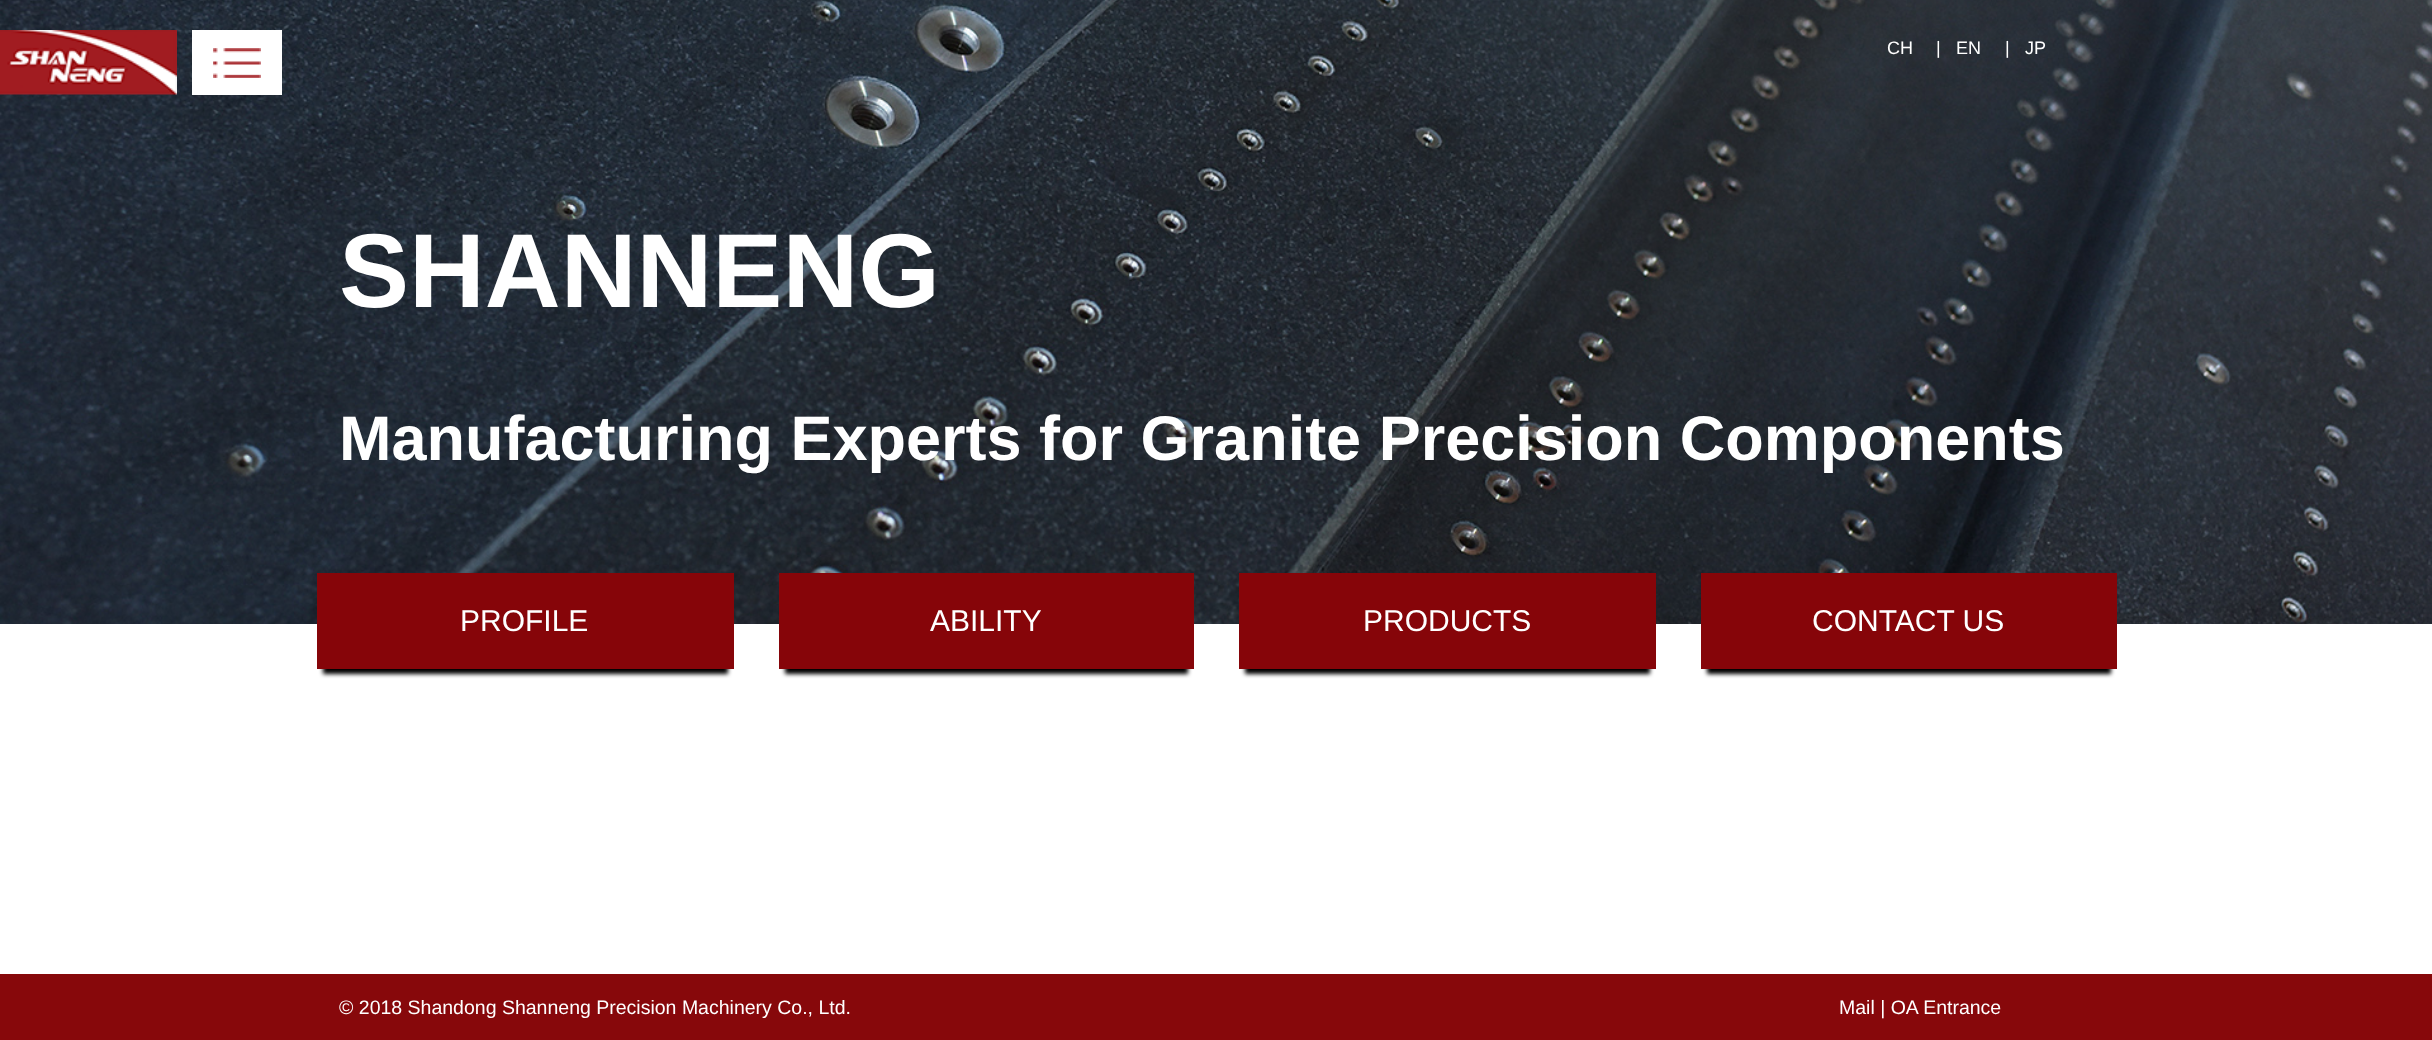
<svg xmlns="http://www.w3.org/2000/svg" width="2432" height="1040" viewBox="0 0 2432 1040">
  <rect width="100%" height="100%" fill="rgb(255,255,255)"/>
  <image x="0" y="0" width="2432" height="624" href="pic3.png"/>
  <image x="0" y="30" width="177" height="65" href="pic1.png"/>
  <rect x="192" y="30" width="90" height="65" fill="rgb(255,255,255)"/>
  <image x="213" y="48" width="48" height="30" href="pic2.png"/>
  <g font-family="Liberation Sans" font-size="18" fill="rgb(255,255,255)">
    <text x="1887" y="54">CH</text>
    <text x="1936" y="54">|</text>
    <text x="1956" y="54">EN</text>
    <text x="2005" y="54">|</text>
    <text x="2025" y="54">JP</text>
  </g>
  <text x="339" y="307" font-family="Liberation Sans" font-size="105" font-weight="bold" fill="rgb(255,255,255)">SHANNENG</text>
  <text x="339" y="460" font-family="Liberation Sans" font-size="63" font-weight="bold" fill="rgb(255,255,255)">Manufacturing Experts for Granite Precision Components</text>
  <rect x="323" y="590" width="405" height="84" fill="rgb(0,0,0)" filter="blur(2px)"/>
  <rect x="317" y="573" width="417" height="96" fill="rgb(134,5,9)"/>
  <text x="460" y="631" font-family="Liberation Sans" font-size="30" fill="rgb(255,255,255)">PROFILE</text>
  <rect x="785" y="590" width="403" height="84" fill="rgb(0,0,0)" filter="blur(2px)"/>
  <rect x="779" y="573" width="415" height="96" fill="rgb(134,5,9)"/>
  <text x="930" y="631" font-family="Liberation Sans" font-size="30" fill="rgb(255,255,255)">ABILITY</text>
  <rect x="1245" y="590" width="405" height="84" fill="rgb(0,0,0)" filter="blur(2px)"/>
  <rect x="1239" y="573" width="417" height="96" fill="rgb(134,5,9)"/>
  <text x="1363" y="631" font-family="Liberation Sans" font-size="30" fill="rgb(255,255,255)">PRODUCTS</text>
  <rect x="1707" y="590" width="404" height="84" fill="rgb(0,0,0)" filter="blur(2px)"/>
  <rect x="1701" y="573" width="416" height="96" fill="rgb(134,5,9)"/>
  <text x="1812" y="631" font-family="Liberation Sans" font-size="30" fill="rgb(255,255,255)">CONTACT US</text>
  <rect x="0" y="974" width="2432" height="66" fill="rgb(135,8,11)"/>
  <g font-family="Liberation Sans" font-size="19.5" fill="rgb(255,255,255)">
    <text x="339" y="1014">© 2018 Shandong Shanneng Precision Machinery Co., Ltd.</text>
    <text x="1839" y="1014">Mail | OA Entrance</text>
  </g>
</svg>
